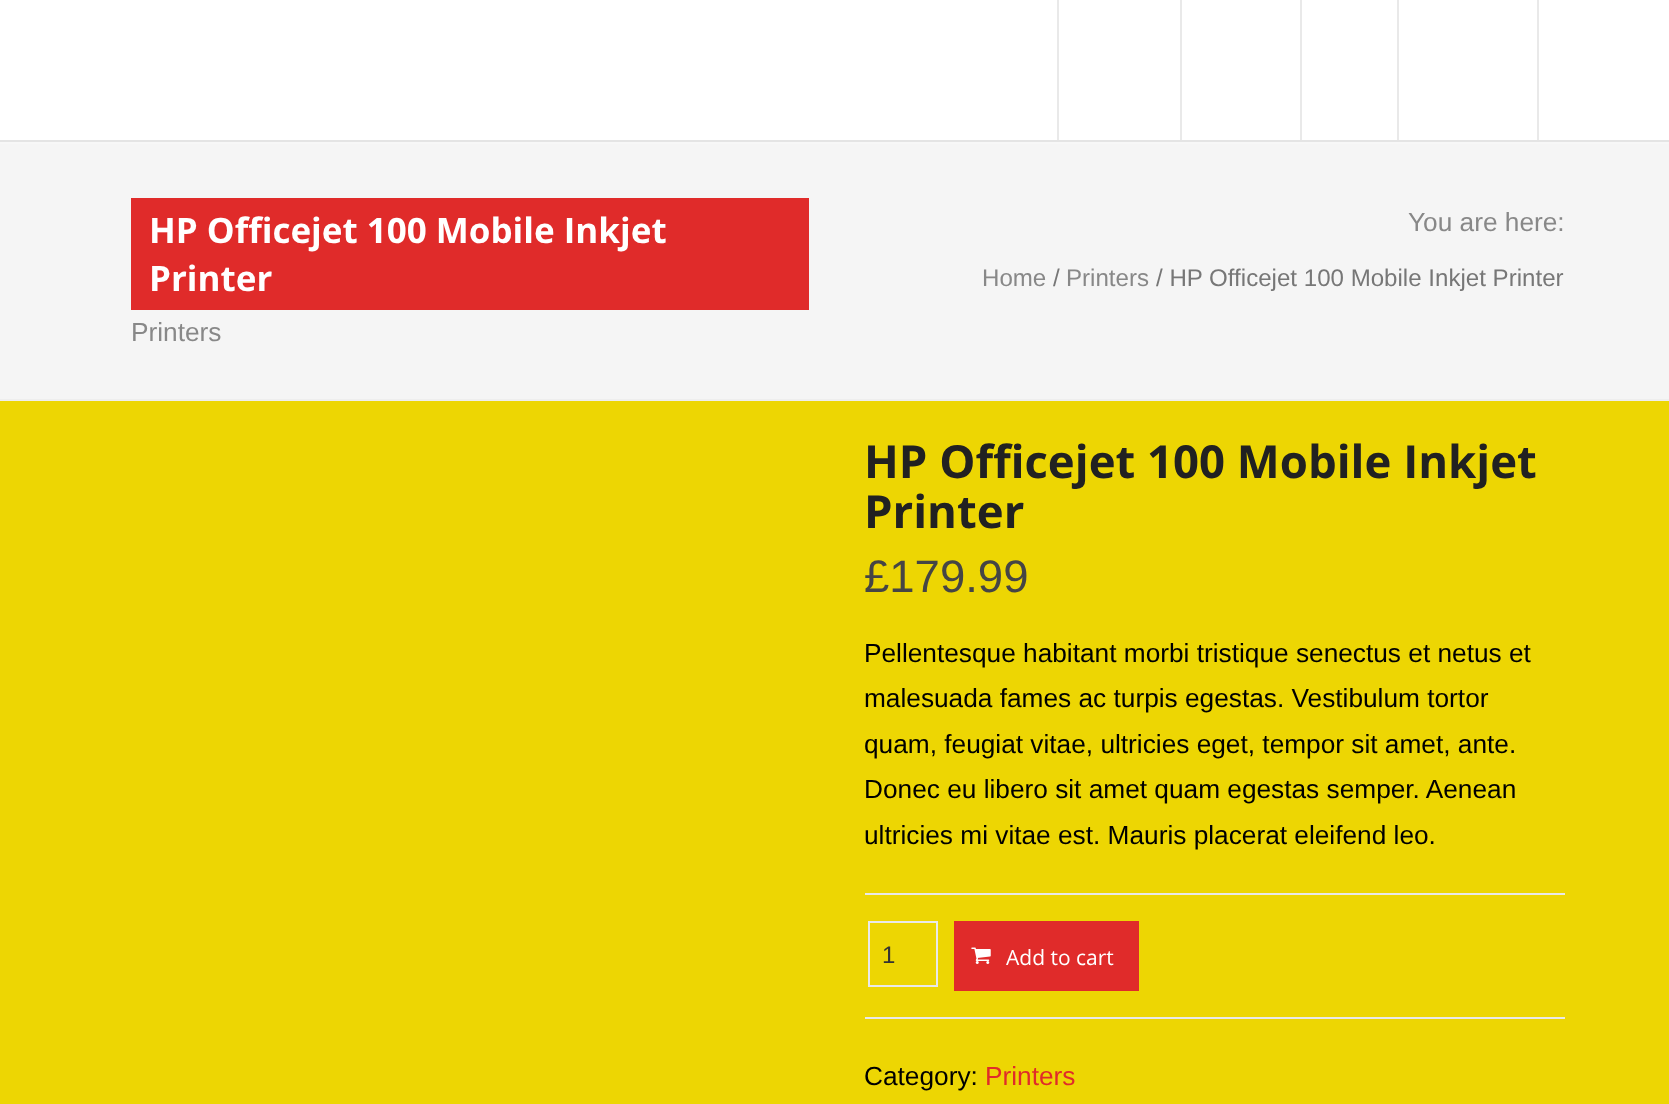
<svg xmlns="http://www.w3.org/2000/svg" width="1669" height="1104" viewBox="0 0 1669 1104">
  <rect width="100%" height="100%" fill="rgb(237,214,3)"/>
  <path d="M0 142V144H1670V2V142Z" fill="rgb(247,247,247)"/>
  <rect x="0" y="0" width="1669" height="140" fill="rgb(255,255,255)"/>
  <rect x="0" y="140" width="1669" height="2" fill="rgb(228,228,228)"/>
  <rect x="1057" y="0" width="2" height="140" fill="rgb(233,233,233)"/>
  <rect x="1180" y="0" width="2" height="140" fill="rgb(233,233,233)"/>
  <rect x="1300" y="0" width="2" height="140" fill="rgb(233,233,233)"/>
  <rect x="1537" y="0" width="2" height="140" fill="rgb(233,233,233)"/>
  <rect x="1397" y="0" width="2" height="140" fill="rgb(233,233,233)"/>
  <rect x="0" y="144" width="1669" height="255" fill="rgb(245,245,245)"/>
  <rect x="0" y="399" width="1669" height="2" fill="rgb(238,238,238)"/>
  <rect x="131" y="198" width="678" height="112" fill="rgb(224,43,42)"/>
  <g font-family="Open Sans" font-size="35" font-weight="bold" fill="rgb(255,255,255)">
    <text>
      <tspan x="149" y="243">HP Officejet 100 Mobile Inkjet</tspan>
      <tspan x="149" y="291">Printer</tspan>
    </text>
  </g>
  <g font-family="Liberation Sans" font-size="26.25" fill="rgb(136,136,136)">
    <text x="131" y="341">Printers</text>
    <text x="1408" y="231">You are here:</text>
  </g>
  <text x="982" y="286" font-family="Liberation Sans" font-size="24.1" fill="rgb(136,136,136)">Home</text>
  <text x="1053" y="286" font-family="Liberation Sans" font-size="24.1" fill="rgb(119,119,119)">/</text>
  <text x="1066" y="286" font-family="Liberation Sans" font-size="24.1" fill="rgb(136,136,136)">Printers</text>
  <text x="1156" y="286" font-family="Liberation Sans" font-size="24.1" fill="rgb(119,119,119)">/ HP Officejet 100 Mobile Inkjet Printer</text>
  <g font-family="Open Sans" font-size="45.5" font-weight="bold" fill="rgb(33,33,33)">
    <text>
      <tspan x="864" y="478">HP Officejet 100 Mobile Inkjet</tspan>
      <tspan x="864" y="528">Printer</tspan>
    </text>
  </g>
  <text x="864" y="592" font-family="Liberation Sans" font-size="45.5" fill="rgb(69,69,69)">£179.99</text>
  <g font-family="Liberation Sans" font-size="26.25" fill="rgb(0,0,0)">
    <text>
      <tspan x="864" y="662">Pellentesque habitant morbi tristique senectus et netus et</tspan>
      <tspan x="864" y="707">malesuada fames ac turpis egestas. Vestibulum tortor</tspan>
      <tspan x="864" y="753">quam, feugiat vitae, ultricies eget, tempor sit amet, ante.</tspan>
      <tspan x="864" y="798">Donec eu libero sit amet quam egestas semper. Aenean</tspan>
      <tspan x="864" y="844">ultricies mi vitae est. Mauris placerat eleifend leo.</tspan>
    </text>
  </g>
  <rect x="865" y="893" width="700" height="2" fill="rgb(233,233,233)"/>
  <rect x="865" y="1017" width="700" height="2" fill="rgb(233,233,233)"/>
  <rect x="869" y="922" width="68" height="64" fill="none" stroke="rgb(233,233,233)" stroke-width="2"/>
  <text x="882" y="963" font-family="Liberation Sans" font-size="24" fill="rgb(51,51,51)">1</text>
  <rect x="954" y="921" width="185" height="70" fill="rgb(224,43,42)"/>
  <image x="971" y="947" width="20" height="17" href="pic1.png"/>
  <text x="1006" y="965" font-family="Open Sans" font-size="21" fill="rgb(255,255,255)">Add to cart</text>
  <text x="864" y="1085" font-family="Liberation Sans" font-size="26.25" fill="rgb(0,0,0)">Category:</text>
  <text x="985" y="1085" font-family="Liberation Sans" font-size="26.25" fill="rgb(224,43,42)">Printers</text>
</svg>
